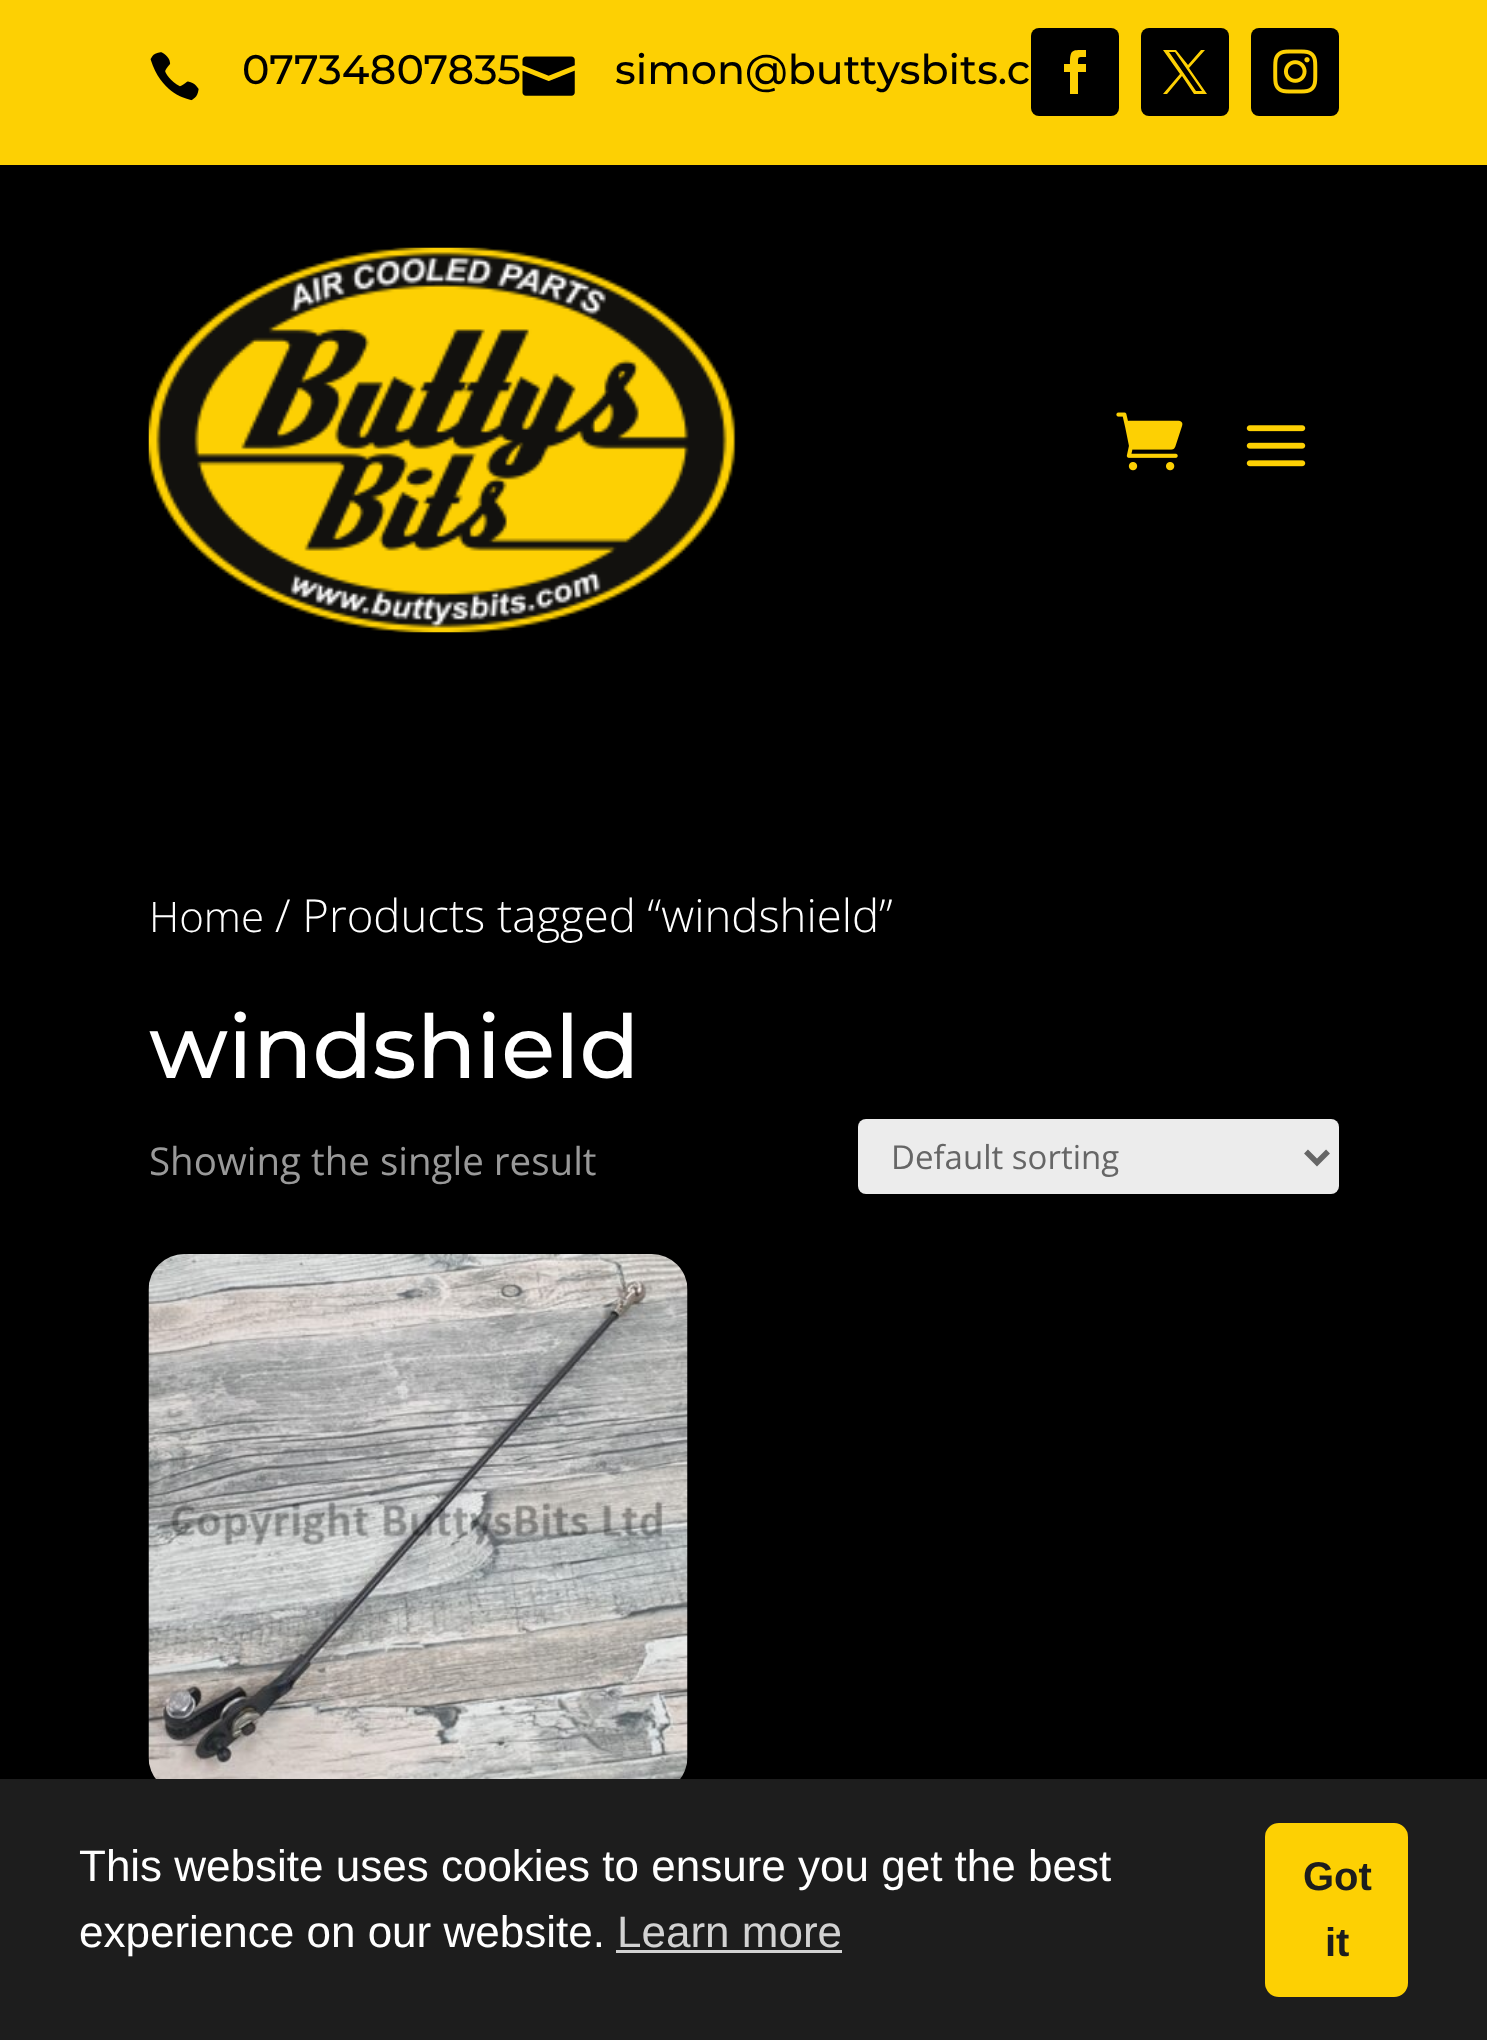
<svg xmlns="http://www.w3.org/2000/svg" width="1487" height="2040" viewBox="0 0 1487 2040">
  <rect width="100%" height="100%" fill="rgb(0,0,0)"/>
  <rect x="0" y="0" width="1487" height="165" fill="rgb(253,208,3)"/>
  <image x="150" y="52" width="49" height="49" href="pic1.png"/>
  <text x="242" y="84" font-family="Montserrat" font-size="41.25" font-weight="500" fill="rgb(0,0,0)">07734807835</text>
  <image x="522" y="56" width="53" height="40" href="pic2.png"/>
  <text x="615" y="84" font-family="Montserrat" font-size="41.25" font-weight="500" fill="rgb(0,0,0)">simon@buttysbits.c</text>
  <rect x="1031" y="28" width="88" height="88" rx="8" fill="rgb(0,0,0)"/>
  <path d="M1070 94H1078V72H1086V64H1078C1078 56 1078 57 1086 57V50C1072 50 1070 49 1070 64H1064V72H1070Z" fill="rgb(253,208,3)"/>
  <rect x="1141" y="28" width="88" height="88" rx="8" fill="rgb(0,0,0)"/>
  <path d="M1163 50L1180 74L1163 94H1167L1182 76L1194 94H1207L1189 68L1205 50H1201L1188 65L1176 50ZM1169 52H1175L1202 91H1196Z" fill="rgb(253,208,3)"/>
  <rect x="1251" y="28" width="88" height="88" rx="8" fill="rgb(0,0,0)"/>
  <image x="1273" y="49" width="45" height="45" href="pic3.png"/>
  <image x="148" y="247" width="588" height="386" href="pic4.png"/>
  <image x="1116" y="412" width="67" height="59" href="pic5.png"/>
  <image x="1246" y="425" width="60" height="42" href="pic6.png"/>
  <text x="149" y="932" font-family="Open Sans" font-size="42" font-weight="300" fill="rgb(255,255,255)">Home</text>
  <text x="275" y="932" font-family="Open Sans" font-size="45.5" font-weight="300" fill="rgb(255,255,255)">/ Products tagged “windshield”</text>
  <text x="149" y="1078" font-family="Montserrat" font-size="88" font-weight="500" fill="rgb(255,255,255)">windshield</text>
  <text x="149" y="1175" font-family="Open Sans" font-size="38.5" fill="rgb(153,153,153)">Showing the single result</text>
  <rect x="858" y="1119" width="481" height="75" rx="8" fill="rgb(236,236,236)"/>
  <path d="M1306 1151.5L1317 1162.5L1328 1151.5" fill="none" stroke="rgb(102,102,102)" stroke-width="5.5"/>
  <text x="891" y="1169" font-family="Open Sans" font-size="33" fill="rgb(102,102,102)">Default sorting</text>
  <image x="148" y="1254" width="540" height="525" href="pic7.png"/>
  <rect x="0" y="1779" width="1487" height="261" fill="rgb(29,29,29)"/>
  <g font-family="Liberation Sans" font-size="44" fill="rgb(255,255,255)">
    <text>
      <tspan x="79" y="1881">This website uses cookies to ensure you get the best</tspan>
      <tspan x="79" y="1947">experience on our website.</tspan>
    </text>
  </g>
  <text x="617" y="1947" font-family="Liberation Sans" font-size="44" fill="rgb(210,210,210)">Learn more</text>
  <rect x="616" y="1950" width="226" height="3" fill="rgb(210,210,210)"/>
  <rect x="1265" y="1823" width="143" height="174" rx="14" fill="rgb(253,208,3)"/>
  <g font-family="Liberation Sans" font-size="40" font-weight="bold" fill="rgb(29,29,29)">
    <text x="1303" y="1890">Got</text>
    <text x="1325" y="1956">it</text>
  </g>
</svg>
